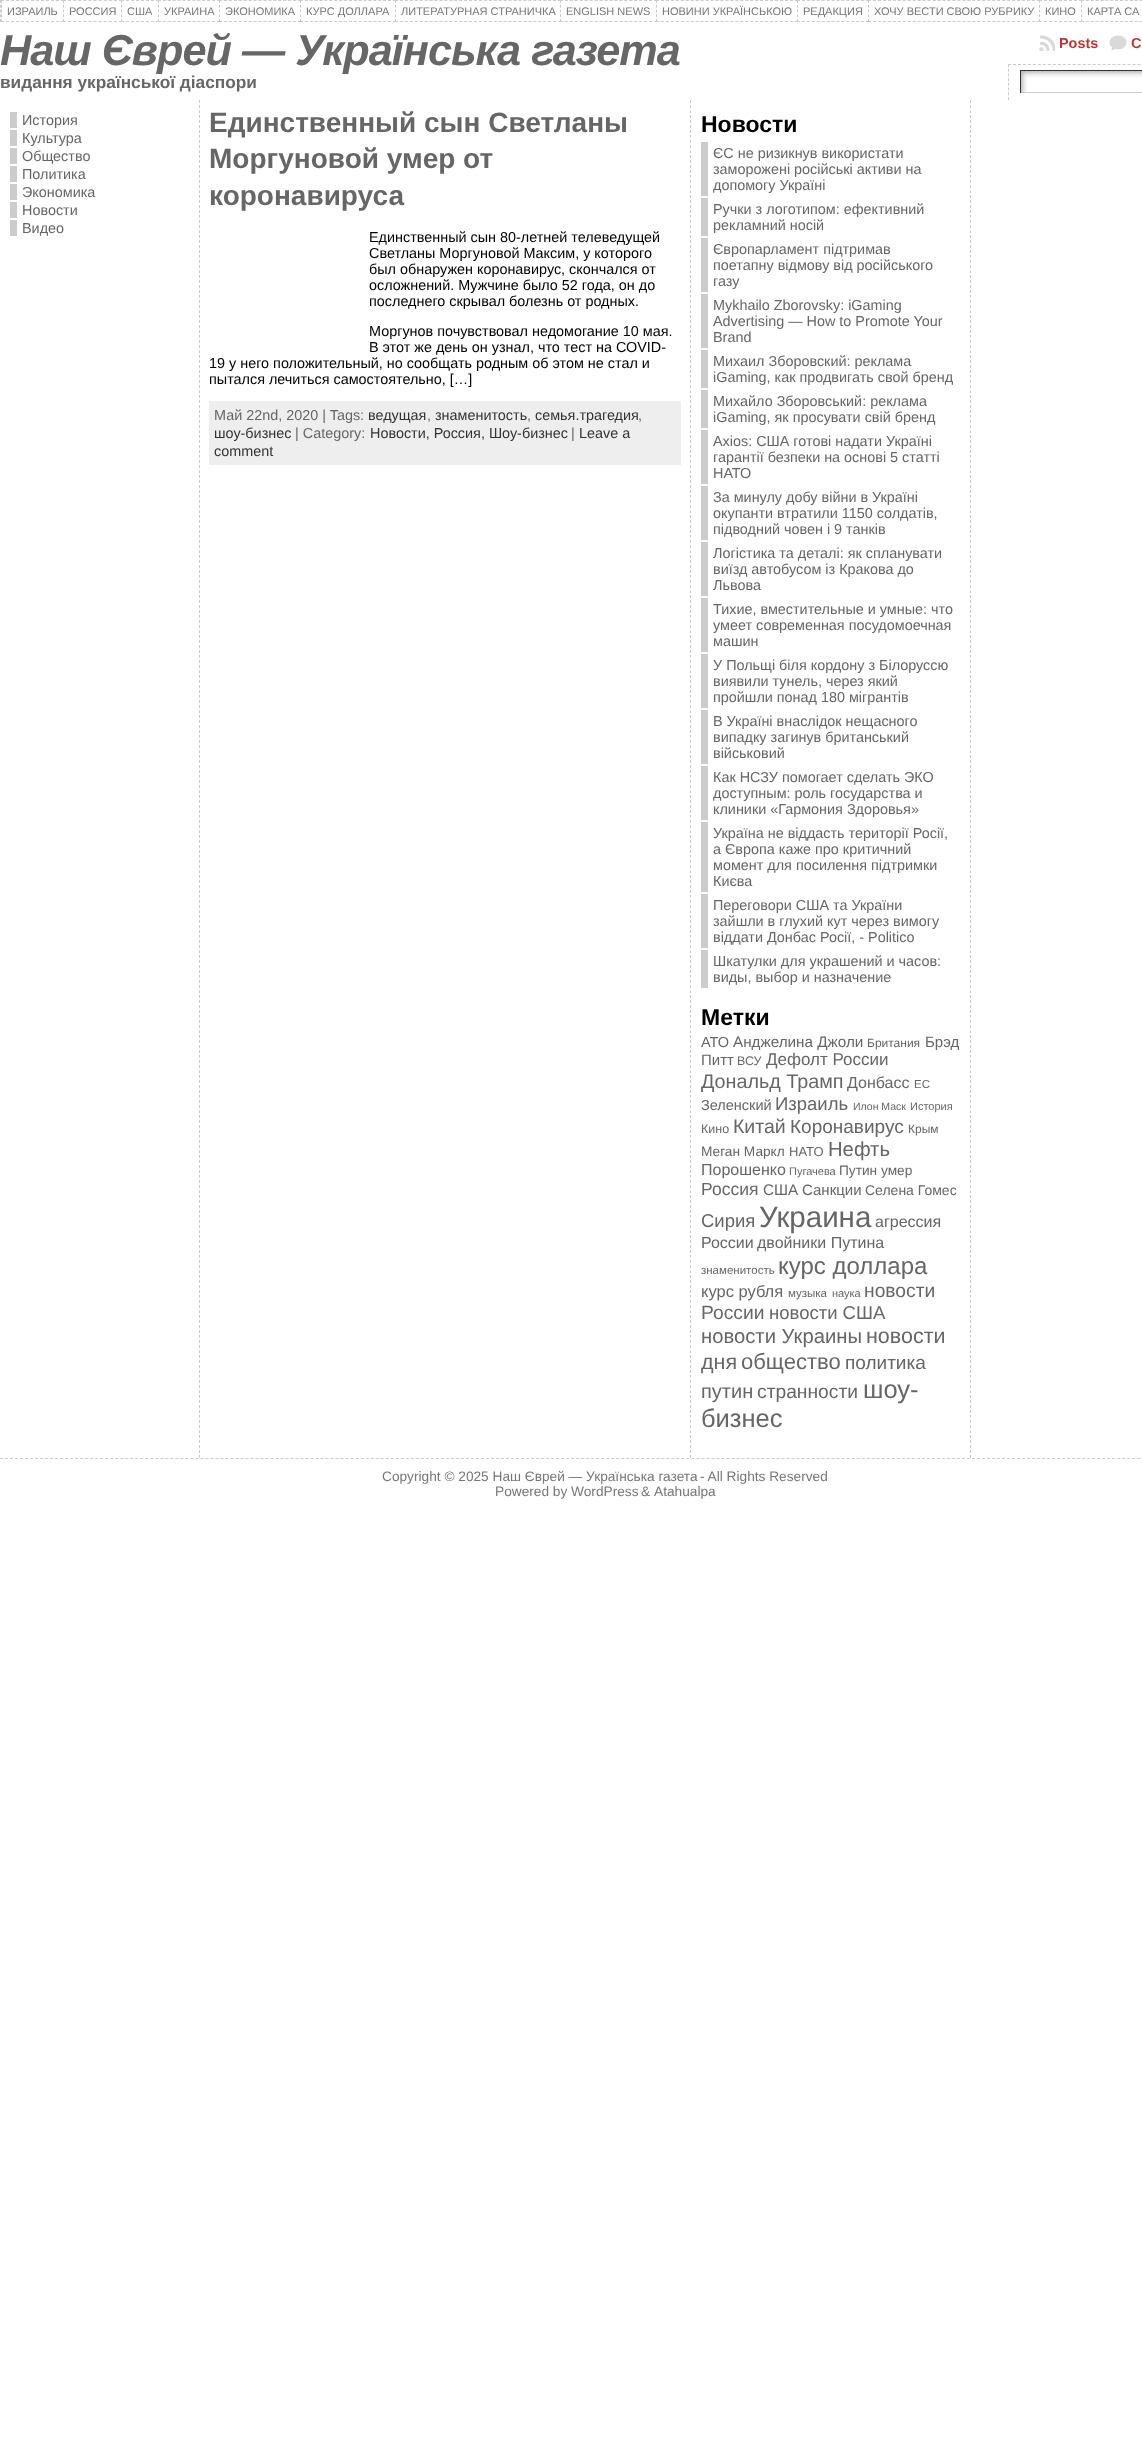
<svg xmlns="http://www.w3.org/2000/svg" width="1142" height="2456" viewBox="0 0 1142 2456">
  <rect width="100%" height="100%" fill="rgb(255,255,255)"/>
  <path d="M.5 0V22" fill="none" stroke="rgb(204,204,204)" stroke-dasharray="3 1.75"/>
  <path d="M1 .5H64M1 21.5H64" fill="none" stroke="rgb(204,204,204)" stroke-dasharray="3 2"/>
  <path d="M1.5 0V22" fill="none" stroke="rgb(204,204,204)" stroke-dasharray="3 1.75"/>
  <text x="7" y="15" font-family="Liberation Sans" font-size="11" fill="rgb(119,119,119)">ИЗРАИЛЬ</text>
  <rect x="63" y="0" width="1" height="22" fill="rgb(255,255,255)"/>
  <path d="M63 .5H122M63 21.5H122" fill="none" stroke="rgb(204,204,204)" stroke-dasharray="3 2.09"/>
  <path d="M63.5 0V22" fill="none" stroke="rgb(204,204,204)" stroke-dasharray="3 1.75"/>
  <text x="69" y="15" font-family="Liberation Sans" font-size="11" fill="rgb(119,119,119)">РОССИЯ</text>
  <rect x="121" y="0" width="1" height="22" fill="rgb(255,255,255)"/>
  <path d="M121 .5H159M121 21.5H159" fill="none" stroke="rgb(204,204,204)" stroke-dasharray="3 2"/>
  <path d="M121.5 0V22" fill="none" stroke="rgb(204,204,204)" stroke-dasharray="3 1.75"/>
  <text x="127" y="15" font-family="Liberation Sans" font-size="11" fill="rgb(119,119,119)">США</text>
  <rect x="158" y="0" width="1" height="22" fill="rgb(255,255,255)"/>
  <path d="M158 .5H220M158 21.5H220" fill="none" stroke="rgb(204,204,204)" stroke-dasharray="3 1.92"/>
  <path d="M158.5 0V22" fill="none" stroke="rgb(204,204,204)" stroke-dasharray="3 1.75"/>
  <text x="164" y="15" font-family="Liberation Sans" font-size="11" fill="rgb(119,119,119)">УКРАИНА</text>
  <rect x="219" y="0" width="1" height="22" fill="rgb(255,255,255)"/>
  <path d="M219 .5H301" fill="none" stroke="rgb(204,204,204)" stroke-dasharray="3 1.94"/>
  <path d="M219 21.5H301" fill="none" stroke="rgb(204,204,204)" stroke-dasharray="3 1.94"/>
  <path d="M219.5 0V22" fill="none" stroke="rgb(204,204,204)" stroke-dasharray="3 1.75"/>
  <text x="225" y="15" font-family="Liberation Sans" font-size="11" fill="rgb(119,119,119)">ЭКОНОМИКА</text>
  <rect x="300" y="0" width="1" height="22" fill="rgb(255,255,255)"/>
  <path d="M300 .5H396" fill="none" stroke="rgb(204,204,204)" stroke-dasharray="3 1.89"/>
  <path d="M300 21.5H396" fill="none" stroke="rgb(204,204,204)" stroke-dasharray="3 1.89"/>
  <path d="M300.5 0V22" fill="none" stroke="rgb(204,204,204)" stroke-dasharray="3 1.75"/>
  <text x="306" y="15" font-family="Liberation Sans" font-size="11" fill="rgb(119,119,119)">КУРС ДОЛЛАРА</text>
  <rect x="395" y="0" width="1" height="22" fill="rgb(255,255,255)"/>
  <path d="M395 .5H561" fill="none" stroke="rgb(204,204,204)" stroke-dasharray="3 1.94"/>
  <path d="M395 21.5H561" fill="none" stroke="rgb(204,204,204)" stroke-dasharray="3 1.94"/>
  <path d="M395.5 0V22" fill="none" stroke="rgb(204,204,204)" stroke-dasharray="3 1.75"/>
  <text x="401" y="15" font-family="Liberation Sans" font-size="11" fill="rgb(119,119,119)">ЛИТЕРАТУРНАЯ СТРАНИЧКА</text>
  <rect x="560" y="0" width="1" height="22" fill="rgb(255,255,255)"/>
  <path d="M560 .5H657" fill="none" stroke="rgb(204,204,204)" stroke-dasharray="3 1.95"/>
  <path d="M560 21.5H657" fill="none" stroke="rgb(204,204,204)" stroke-dasharray="3 1.95"/>
  <path d="M560.5 0V22" fill="none" stroke="rgb(204,204,204)" stroke-dasharray="3 1.75"/>
  <text x="566" y="15" font-family="Liberation Sans" font-size="11" fill="rgb(119,119,119)">ENGLISH NEWS</text>
  <rect x="656" y="0" width="1" height="22" fill="rgb(255,255,255)"/>
  <path d="M656 .5H798" fill="none" stroke="rgb(204,204,204)" stroke-dasharray="3 1.96"/>
  <path d="M656 21.5H798" fill="none" stroke="rgb(204,204,204)" stroke-dasharray="3 1.96"/>
  <path d="M656.5 0V22" fill="none" stroke="rgb(204,204,204)" stroke-dasharray="3 1.75"/>
  <text x="662" y="15" font-family="Liberation Sans" font-size="11" fill="rgb(119,119,119)">НОВИНИ УКРАЇНСЬКОЮ</text>
  <rect x="797" y="0" width="1" height="22" fill="rgb(255,255,255)"/>
  <path d="M797 .5H869" fill="none" stroke="rgb(204,204,204)" stroke-dasharray="3 1.93"/>
  <path d="M797 21.5H869" fill="none" stroke="rgb(204,204,204)" stroke-dasharray="3 1.93"/>
  <path d="M797.5 0V22" fill="none" stroke="rgb(204,204,204)" stroke-dasharray="3 1.75"/>
  <text x="803" y="15" font-family="Liberation Sans" font-size="11" fill="rgb(119,119,119)">РЕДАКЦИЯ</text>
  <rect x="868" y="0" width="1" height="22" fill="rgb(255,255,255)"/>
  <path d="M868 .5H1040" fill="none" stroke="rgb(204,204,204)" stroke-dasharray="3 1.97"/>
  <path d="M868 21.5H1040" fill="none" stroke="rgb(204,204,204)" stroke-dasharray="3 1.97"/>
  <path d="M868.5 0V22" fill="none" stroke="rgb(204,204,204)" stroke-dasharray="3 1.75"/>
  <text x="874" y="15" font-family="Liberation Sans" font-size="11" fill="rgb(119,119,119)">ХОЧУ ВЕСТИ СВОЮ РУБРИКУ</text>
  <rect x="1039" y="0" width="1" height="22" fill="rgb(255,255,255)"/>
  <path d="M1039 .5H1082M1039 21.5H1082" fill="none" stroke="rgb(204,204,204)" stroke-dasharray="3 2"/>
  <path d="M1039.5 0V22" fill="none" stroke="rgb(204,204,204)" stroke-dasharray="3 1.75"/>
  <text x="1045" y="15" font-family="Liberation Sans" font-size="11" fill="rgb(119,119,119)">КИНО</text>
  <rect x="1081" y="0" width="1" height="22" fill="rgb(255,255,255)"/>
  <path d="M1081 .5H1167M1081 21.5H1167" fill="none" stroke="rgb(204,204,204)" stroke-dasharray="3 1.88"/>
  <path d="M1081.5 0V22" fill="none" stroke="rgb(204,204,204)" stroke-dasharray="3 1.75"/>
  <text x="1087" y="15" font-family="Liberation Sans" font-size="11" fill="rgb(119,119,119)">КАРТА СА</text>
  <text x="0" y="65" font-family="Liberation Sans" font-size="43.25" font-weight="bold" font-style="italic" letter-spacing="-1" fill="rgb(102,102,102)">Наш Єврей — Українська газета</text>
  <text x="0" y="88" font-family="Liberation Sans" font-size="17.25" font-weight="bold" fill="rgb(102,102,102)">видання української діаспори</text>
  <image x="1039" y="35" width="16" height="16" href="pic1.png"/>
  <text x="1059" y="48" font-family="Liberation Sans" font-size="14.4" font-weight="bold" fill="rgb(195,51,50)">Posts</text>
  <image x="1109" y="35" width="18" height="16" href="pic2.png"/>
  <text x="1131" y="48" font-family="Liberation Sans" font-size="14.4" font-weight="bold" fill="rgb(195,51,50)">C</text>
  <path d="M1008 64.5H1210" fill="none" stroke="rgb(204,204,204)" stroke-dasharray="3 1.98"/>
  <path d="M1008.5 64V100" fill="none" stroke="rgb(204,204,204)" stroke-dasharray="3 1.71"/>
  <image x="1021" y="71" width="121" height="21" href="pic3.png"/>
  <rect x="1020" y="70" width="122" height="1" fill="rgb(51,51,51)"/>
  <rect x="1020" y="92" width="122" height="1" fill="rgb(204,204,204)"/>
  <rect x="1020" y="70" width="1" height="23" fill="rgb(51,51,51)"/>
  <path d="M199.5 100V1458" fill="none" stroke="rgb(204,204,204)" stroke-dasharray="3 2"/>
  <rect x="10" y="112" width="7" height="16" fill="rgb(204,204,204)"/>
  <text x="22" y="125" font-family="Liberation Sans" font-size="14.4" fill="rgb(102,102,102)">История</text>
  <rect x="10" y="130" width="7" height="16" fill="rgb(204,204,204)"/>
  <text x="22" y="143" font-family="Liberation Sans" font-size="14.4" fill="rgb(102,102,102)">Культура</text>
  <rect x="10" y="148" width="7" height="16" fill="rgb(204,204,204)"/>
  <text x="22" y="161" font-family="Liberation Sans" font-size="14.4" fill="rgb(102,102,102)">Общество</text>
  <rect x="10" y="166" width="7" height="16" fill="rgb(204,204,204)"/>
  <text x="22" y="179" font-family="Liberation Sans" font-size="14.4" fill="rgb(102,102,102)">Политика</text>
  <rect x="10" y="184" width="7" height="16" fill="rgb(204,204,204)"/>
  <text x="22" y="197" font-family="Liberation Sans" font-size="14.4" fill="rgb(102,102,102)">Экономика</text>
  <rect x="10" y="202" width="7" height="16" fill="rgb(204,204,204)"/>
  <text x="22" y="215" font-family="Liberation Sans" font-size="14.4" fill="rgb(102,102,102)">Новости</text>
  <rect x="10" y="220" width="7" height="16" fill="rgb(204,204,204)"/>
  <text x="22" y="233" font-family="Liberation Sans" font-size="14.4" fill="rgb(102,102,102)">Видео</text>
  <g font-family="Liberation Sans" font-size="28" font-weight="bold" fill="rgb(102,102,102)">
    <text>
      <tspan x="209" y="132">Единственный сын Светланы</tspan>
      <tspan x="209" y="168">Моргуновой умер от</tspan>
      <tspan x="209" y="205">коронавируса</tspan>
    </text>
  </g>
  <g font-family="Liberation Sans" font-size="14.4" fill="rgb(0,0,0)">
    <text>
      <tspan x="369" y="242">Единственный сын 80-летней телеведущей</tspan>
      <tspan x="369" y="258">Светланы Моргуновой Максим, у которого</tspan>
      <tspan x="369" y="274">был обнаружен коронавирус, скончался от</tspan>
      <tspan x="369" y="290">осложнений. Мужчине было 52 года, он до</tspan>
      <tspan x="369" y="306">последнего скрывал болезнь от родных.</tspan>
    </text>
    <text>
      <tspan x="369" y="336">Моргунов почувствовал недомогание 10 мая.</tspan>
      <tspan x="369" y="352">В этот же день он узнал, что тест на СОVID-</tspan>
    </text>
    <text>
      <tspan x="209" y="368">19 у него положительный, но сообщать родным об этом не стал и</tspan>
      <tspan x="209" y="384">пытался лечиться самостоятельно, […]</tspan>
    </text>
  </g>
  <rect x="209" y="401" width="472" height="64" fill="rgb(238,238,238)"/>
  <text x="214" y="420" font-family="Liberation Sans" font-size="14.4" fill="rgb(102,102,102)">Май 22nd, 2020 | Tags:</text>
  <text x="368" y="420" font-family="Liberation Sans" font-size="14.4" fill="rgb(51,51,51)">ведущая</text>
  <text x="427" y="420" font-family="Liberation Sans" font-size="14.4" fill="rgb(102,102,102)">,</text>
  <text x="435" y="420" font-family="Liberation Sans" font-size="14.4" fill="rgb(51,51,51)">знаменитость</text>
  <text x="527" y="420" font-family="Liberation Sans" font-size="14.4" fill="rgb(102,102,102)">,</text>
  <text x="535" y="420" font-family="Liberation Sans" font-size="14.4" fill="rgb(51,51,51)">семья.трагедия</text>
  <text x="638" y="420" font-family="Liberation Sans" font-size="14.4" fill="rgb(102,102,102)">,</text>
  <text x="214" y="438" font-family="Liberation Sans" font-size="14.4" fill="rgb(51,51,51)">шоу-бизнес</text>
  <text x="295" y="438" font-family="Liberation Sans" font-size="14.4" fill="rgb(102,102,102)">| Category:</text>
  <text x="370" y="438" font-family="Liberation Sans" font-size="14.4" fill="rgb(51,51,51)">Новости, Россия, Шоу-бизнес</text>
  <text x="571" y="438" font-family="Liberation Sans" font-size="14.4" fill="rgb(102,102,102)">|</text>
  <g font-family="Liberation Sans" font-size="14.4" fill="rgb(51,51,51)">
    <text x="579" y="438">Leave a</text>
    <text x="214" y="456">comment</text>
  </g>
  <path d="M690.5 100V1458" fill="none" stroke="rgb(204,204,204)" stroke-dasharray="3 2"/>
  <text x="701" y="132" font-family="Liberation Sans" font-size="23" font-weight="bold" fill="rgb(0,0,0)">Новости</text>
  <rect x="701" y="142" width="7" height="54" fill="rgb(204,204,204)"/>
  <g font-family="Liberation Sans" font-size="14.4" fill="rgb(102,102,102)">
    <text>
      <tspan x="713" y="158">ЄС не ризикнув використати</tspan>
      <tspan x="713" y="174">заморожені російські активи на</tspan>
      <tspan x="713" y="190">допомогу Україні</tspan>
    </text>
  </g>
  <rect x="701" y="198" width="7" height="38" fill="rgb(204,204,204)"/>
  <g font-family="Liberation Sans" font-size="14.4" fill="rgb(102,102,102)">
    <text>
      <tspan x="713" y="214">Ручки з логотипом: ефективний</tspan>
      <tspan x="713" y="230">рекламний носій</tspan>
    </text>
  </g>
  <rect x="701" y="238" width="7" height="54" fill="rgb(204,204,204)"/>
  <g font-family="Liberation Sans" font-size="14.4" fill="rgb(102,102,102)">
    <text>
      <tspan x="713" y="254">Європарламент підтримав</tspan>
      <tspan x="713" y="270">поетапну відмову від російського</tspan>
      <tspan x="713" y="286">газу</tspan>
    </text>
  </g>
  <rect x="701" y="294" width="7" height="54" fill="rgb(204,204,204)"/>
  <g font-family="Liberation Sans" font-size="14.4" fill="rgb(102,102,102)">
    <text>
      <tspan x="713" y="310">Mykhailo Zborovsky: iGaming</tspan>
      <tspan x="713" y="326">Advertising — How to Promote Your</tspan>
      <tspan x="713" y="342">Brand</tspan>
    </text>
  </g>
  <rect x="701" y="350" width="7" height="38" fill="rgb(204,204,204)"/>
  <g font-family="Liberation Sans" font-size="14.4" fill="rgb(102,102,102)">
    <text>
      <tspan x="713" y="366">Михаил Зборовский: реклама</tspan>
      <tspan x="713" y="382">iGaming, как продвигать свой бренд</tspan>
    </text>
  </g>
  <rect x="701" y="390" width="7" height="38" fill="rgb(204,204,204)"/>
  <g font-family="Liberation Sans" font-size="14.4" fill="rgb(102,102,102)">
    <text>
      <tspan x="713" y="406">Михайло Зборовський: реклама</tspan>
      <tspan x="713" y="422">iGaming, як просувати свій бренд</tspan>
    </text>
  </g>
  <rect x="701" y="430" width="7" height="54" fill="rgb(204,204,204)"/>
  <g font-family="Liberation Sans" font-size="14.4" fill="rgb(102,102,102)">
    <text>
      <tspan x="713" y="446">Axios: США готові надати Україні</tspan>
      <tspan x="713" y="462">гарантії безпеки на основі 5 статті</tspan>
      <tspan x="713" y="478">НАТО</tspan>
    </text>
  </g>
  <rect x="701" y="486" width="7" height="54" fill="rgb(204,204,204)"/>
  <g font-family="Liberation Sans" font-size="14.4" fill="rgb(102,102,102)">
    <text>
      <tspan x="713" y="502">За минулу добу війни в Україні</tspan>
      <tspan x="713" y="518">окупанти втратили 1150 солдатів,</tspan>
      <tspan x="713" y="534">підводний човен і 9 танків</tspan>
    </text>
  </g>
  <rect x="701" y="542" width="7" height="54" fill="rgb(204,204,204)"/>
  <g font-family="Liberation Sans" font-size="14.4" fill="rgb(102,102,102)">
    <text>
      <tspan x="713" y="558">Логістика та деталі: як спланувати</tspan>
      <tspan x="713" y="574">виїзд автобусом із Кракова до</tspan>
      <tspan x="713" y="590">Львова</tspan>
    </text>
  </g>
  <rect x="701" y="598" width="7" height="54" fill="rgb(204,204,204)"/>
  <g font-family="Liberation Sans" font-size="14.4" fill="rgb(102,102,102)">
    <text>
      <tspan x="713" y="614">Тихие, вместительные и умные: что</tspan>
      <tspan x="713" y="630">умеет современная посудомоечная</tspan>
      <tspan x="713" y="646">машин</tspan>
    </text>
  </g>
  <rect x="701" y="654" width="7" height="54" fill="rgb(204,204,204)"/>
  <g font-family="Liberation Sans" font-size="14.4" fill="rgb(102,102,102)">
    <text>
      <tspan x="713" y="670">У Польщі біля кордону з Білоруссю</tspan>
      <tspan x="713" y="686">виявили тунель, через який</tspan>
      <tspan x="713" y="702">пройшли понад 180 мігрантів</tspan>
    </text>
  </g>
  <rect x="701" y="710" width="7" height="54" fill="rgb(204,204,204)"/>
  <g font-family="Liberation Sans" font-size="14.4" fill="rgb(102,102,102)">
    <text>
      <tspan x="713" y="726">В Україні внаслідок нещасного</tspan>
      <tspan x="713" y="742">випадку загинув британський</tspan>
      <tspan x="713" y="758">військовий</tspan>
    </text>
  </g>
  <rect x="701" y="766" width="7" height="54" fill="rgb(204,204,204)"/>
  <g font-family="Liberation Sans" font-size="14.4" fill="rgb(102,102,102)">
    <text>
      <tspan x="713" y="782">Как НСЗУ помогает сделать ЭКО</tspan>
      <tspan x="713" y="798">доступным: роль государства и</tspan>
      <tspan x="713" y="814">клиники «Гармония Здоровья»</tspan>
    </text>
  </g>
  <rect x="701" y="822" width="7" height="70" fill="rgb(204,204,204)"/>
  <g font-family="Liberation Sans" font-size="14.4" fill="rgb(102,102,102)">
    <text>
      <tspan x="713" y="838">Україна не віддасть території Росії,</tspan>
      <tspan x="713" y="854">а Європа каже про критичний</tspan>
      <tspan x="713" y="870">момент для посилення підтримки</tspan>
      <tspan x="713" y="886">Києва</tspan>
    </text>
  </g>
  <rect x="701" y="894" width="7" height="54" fill="rgb(204,204,204)"/>
  <g font-family="Liberation Sans" font-size="14.4" fill="rgb(102,102,102)">
    <text>
      <tspan x="713" y="910">Переговори США та України</tspan>
      <tspan x="713" y="926">зайшли в глухий кут через вимогу</tspan>
      <tspan x="713" y="942">віддати Донбас Росії, - Politico</tspan>
    </text>
  </g>
  <rect x="701" y="950" width="7" height="38" fill="rgb(204,204,204)"/>
  <g font-family="Liberation Sans" font-size="14.4" fill="rgb(102,102,102)">
    <text>
      <tspan x="713" y="966">Шкатулки для украшений и часов:</tspan>
      <tspan x="713" y="982">виды, выбор и назначение</tspan>
    </text>
  </g>
  <text x="701" y="1025" font-family="Liberation Sans" font-size="23" font-weight="bold" fill="rgb(0,0,0)">Метки</text>
  <text x="701" y="1047" font-family="Liberation Sans" font-size="14.5" fill="rgb(102,102,102)">АТО</text>
  <text x="733" y="1047" font-family="Liberation Sans" font-size="15.25" fill="rgb(102,102,102)">Анджелина Джоли</text>
  <text x="867" y="1047" font-family="Liberation Sans" font-size="12" fill="rgb(102,102,102)">Британия</text>
  <g font-family="Liberation Sans" font-size="15" fill="rgb(102,102,102)">
    <text x="925" y="1047">Брэд</text>
    <text x="701" y="1065">Питт</text>
  </g>
  <text x="737" y="1065" font-family="Liberation Sans" font-size="12.5" fill="rgb(102,102,102)">ВСУ</text>
  <text x="766" y="1065" font-family="Liberation Sans" font-size="17" fill="rgb(102,102,102)">Дефолт России</text>
  <text x="701" y="1088" font-family="Liberation Sans" font-size="19.75" fill="rgb(102,102,102)">Дональд Трамп</text>
  <text x="847" y="1088" font-family="Liberation Sans" font-size="16" fill="rgb(102,102,102)">Донбасс</text>
  <text x="914" y="1088" font-family="Liberation Sans" font-size="11.5" fill="rgb(102,102,102)">ЕС</text>
  <text x="701" y="1110" font-family="Liberation Sans" font-size="14.5" fill="rgb(102,102,102)">Зеленский</text>
  <text x="775" y="1110" font-family="Liberation Sans" font-size="18.5" fill="rgb(102,102,102)">Израиль</text>
  <text x="853" y="1110" font-family="Liberation Sans" font-size="10.5" fill="rgb(102,102,102)">Илон Маск</text>
  <text x="910" y="1110" font-family="Liberation Sans" font-size="11" fill="rgb(102,102,102)">История</text>
  <text x="701" y="1133" font-family="Liberation Sans" font-size="12.5" fill="rgb(102,102,102)">Кино</text>
  <text x="733" y="1133" font-family="Liberation Sans" font-size="19.5" fill="rgb(102,102,102)">Китай</text>
  <text x="790" y="1133" font-family="Liberation Sans" font-size="19" fill="rgb(102,102,102)">Коронавирус</text>
  <text x="908" y="1133" font-family="Liberation Sans" font-size="12" fill="rgb(102,102,102)">Крым</text>
  <text x="701" y="1156" font-family="Liberation Sans" font-size="13.7" fill="rgb(102,102,102)">Меган Маркл</text>
  <text x="789" y="1156" font-family="Liberation Sans" font-size="13" fill="rgb(102,102,102)">НАТО</text>
  <text x="828" y="1156" font-family="Liberation Sans" font-size="20.25" fill="rgb(102,102,102)">Нефть</text>
  <text x="701" y="1175" font-family="Liberation Sans" font-size="16" fill="rgb(102,102,102)">Порошенко</text>
  <text x="789" y="1175" font-family="Liberation Sans" font-size="11" fill="rgb(102,102,102)">Пугачева</text>
  <text x="839" y="1175" font-family="Liberation Sans" font-size="13.7" fill="rgb(102,102,102)">Путин умер</text>
  <text x="701" y="1195" font-family="Liberation Sans" font-size="17.5" fill="rgb(102,102,102)">Россия</text>
  <text x="763" y="1195" font-family="Liberation Sans" font-size="15.25" fill="rgb(102,102,102)">США</text>
  <text x="802" y="1195" font-family="Liberation Sans" font-size="15" fill="rgb(102,102,102)">Санкции</text>
  <text x="865" y="1195" font-family="Liberation Sans" font-size="14" fill="rgb(102,102,102)">Селена Гомес</text>
  <text x="701" y="1227" font-family="Liberation Sans" font-size="18.5" fill="rgb(102,102,102)">Сирия</text>
  <text x="759" y="1227" font-family="Liberation Sans" font-size="29.5" fill="rgb(102,102,102)">Украина</text>
  <g font-family="Liberation Sans" font-size="16" fill="rgb(102,102,102)">
    <text x="875" y="1227">агрессия</text>
    <text x="701" y="1248">России</text>
    <text x="757" y="1248">двойники Путина</text>
  </g>
  <text x="701" y="1274" font-family="Liberation Sans" font-size="11.5" fill="rgb(102,102,102)">знаменитость</text>
  <text x="778" y="1274" font-family="Liberation Sans" font-size="24" fill="rgb(102,102,102)">курс доллара</text>
  <text x="701" y="1297" font-family="Liberation Sans" font-size="16.5" fill="rgb(102,102,102)">курс рубля</text>
  <text x="788" y="1297" font-family="Liberation Sans" font-size="11.5" fill="rgb(102,102,102)">музыка</text>
  <text x="832" y="1297" font-family="Liberation Sans" font-size="11" fill="rgb(102,102,102)">наука</text>
  <g font-family="Liberation Sans" font-size="19.25" fill="rgb(102,102,102)">
    <text x="864" y="1297">новости</text>
    <text x="701" y="1319">России</text>
  </g>
  <text x="769" y="1319" font-family="Liberation Sans" font-size="18.5" fill="rgb(102,102,102)">новости США</text>
  <text x="701" y="1343" font-family="Liberation Sans" font-size="20.25" fill="rgb(102,102,102)">новости Украины</text>
  <g font-family="Liberation Sans" font-size="21.5" fill="rgb(102,102,102)">
    <text x="866" y="1343">новости</text>
    <text x="701" y="1369">дня</text>
  </g>
  <text x="741" y="1369" font-family="Liberation Sans" font-size="22" fill="rgb(102,102,102)">общество</text>
  <text x="845" y="1369" font-family="Liberation Sans" font-size="19" fill="rgb(102,102,102)">политика</text>
  <text x="701" y="1398" font-family="Liberation Sans" font-size="20" fill="rgb(102,102,102)">путин</text>
  <text x="757" y="1398" font-family="Liberation Sans" font-size="19.25" fill="rgb(102,102,102)">странности</text>
  <g font-family="Liberation Sans" font-size="25.5" fill="rgb(102,102,102)">
    <text x="863" y="1398">шоу-</text>
    <text x="701" y="1427">бизнес</text>
  </g>
  <path d="M970.5 100V1458" fill="none" stroke="rgb(204,204,204)" stroke-dasharray="3 2"/>
  <path d="M0 1458.5H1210" fill="none" stroke="rgb(204,204,204)" stroke-dasharray="3 2.01"/>
  <g font-family="Liberation Sans" font-size="13.7" fill="rgb(119,119,119)">
    <text x="382" y="1481">Copyright © 2025 Наш Єврей — Українська газета</text>
    <text x="700" y="1481">- All Rights Reserved</text>
    <text x="495" y="1496">Powered by WordPress</text>
    <text x="641" y="1496">&amp;</text>
    <text x="654" y="1496">Atahualpa</text>
  </g>
</svg>
